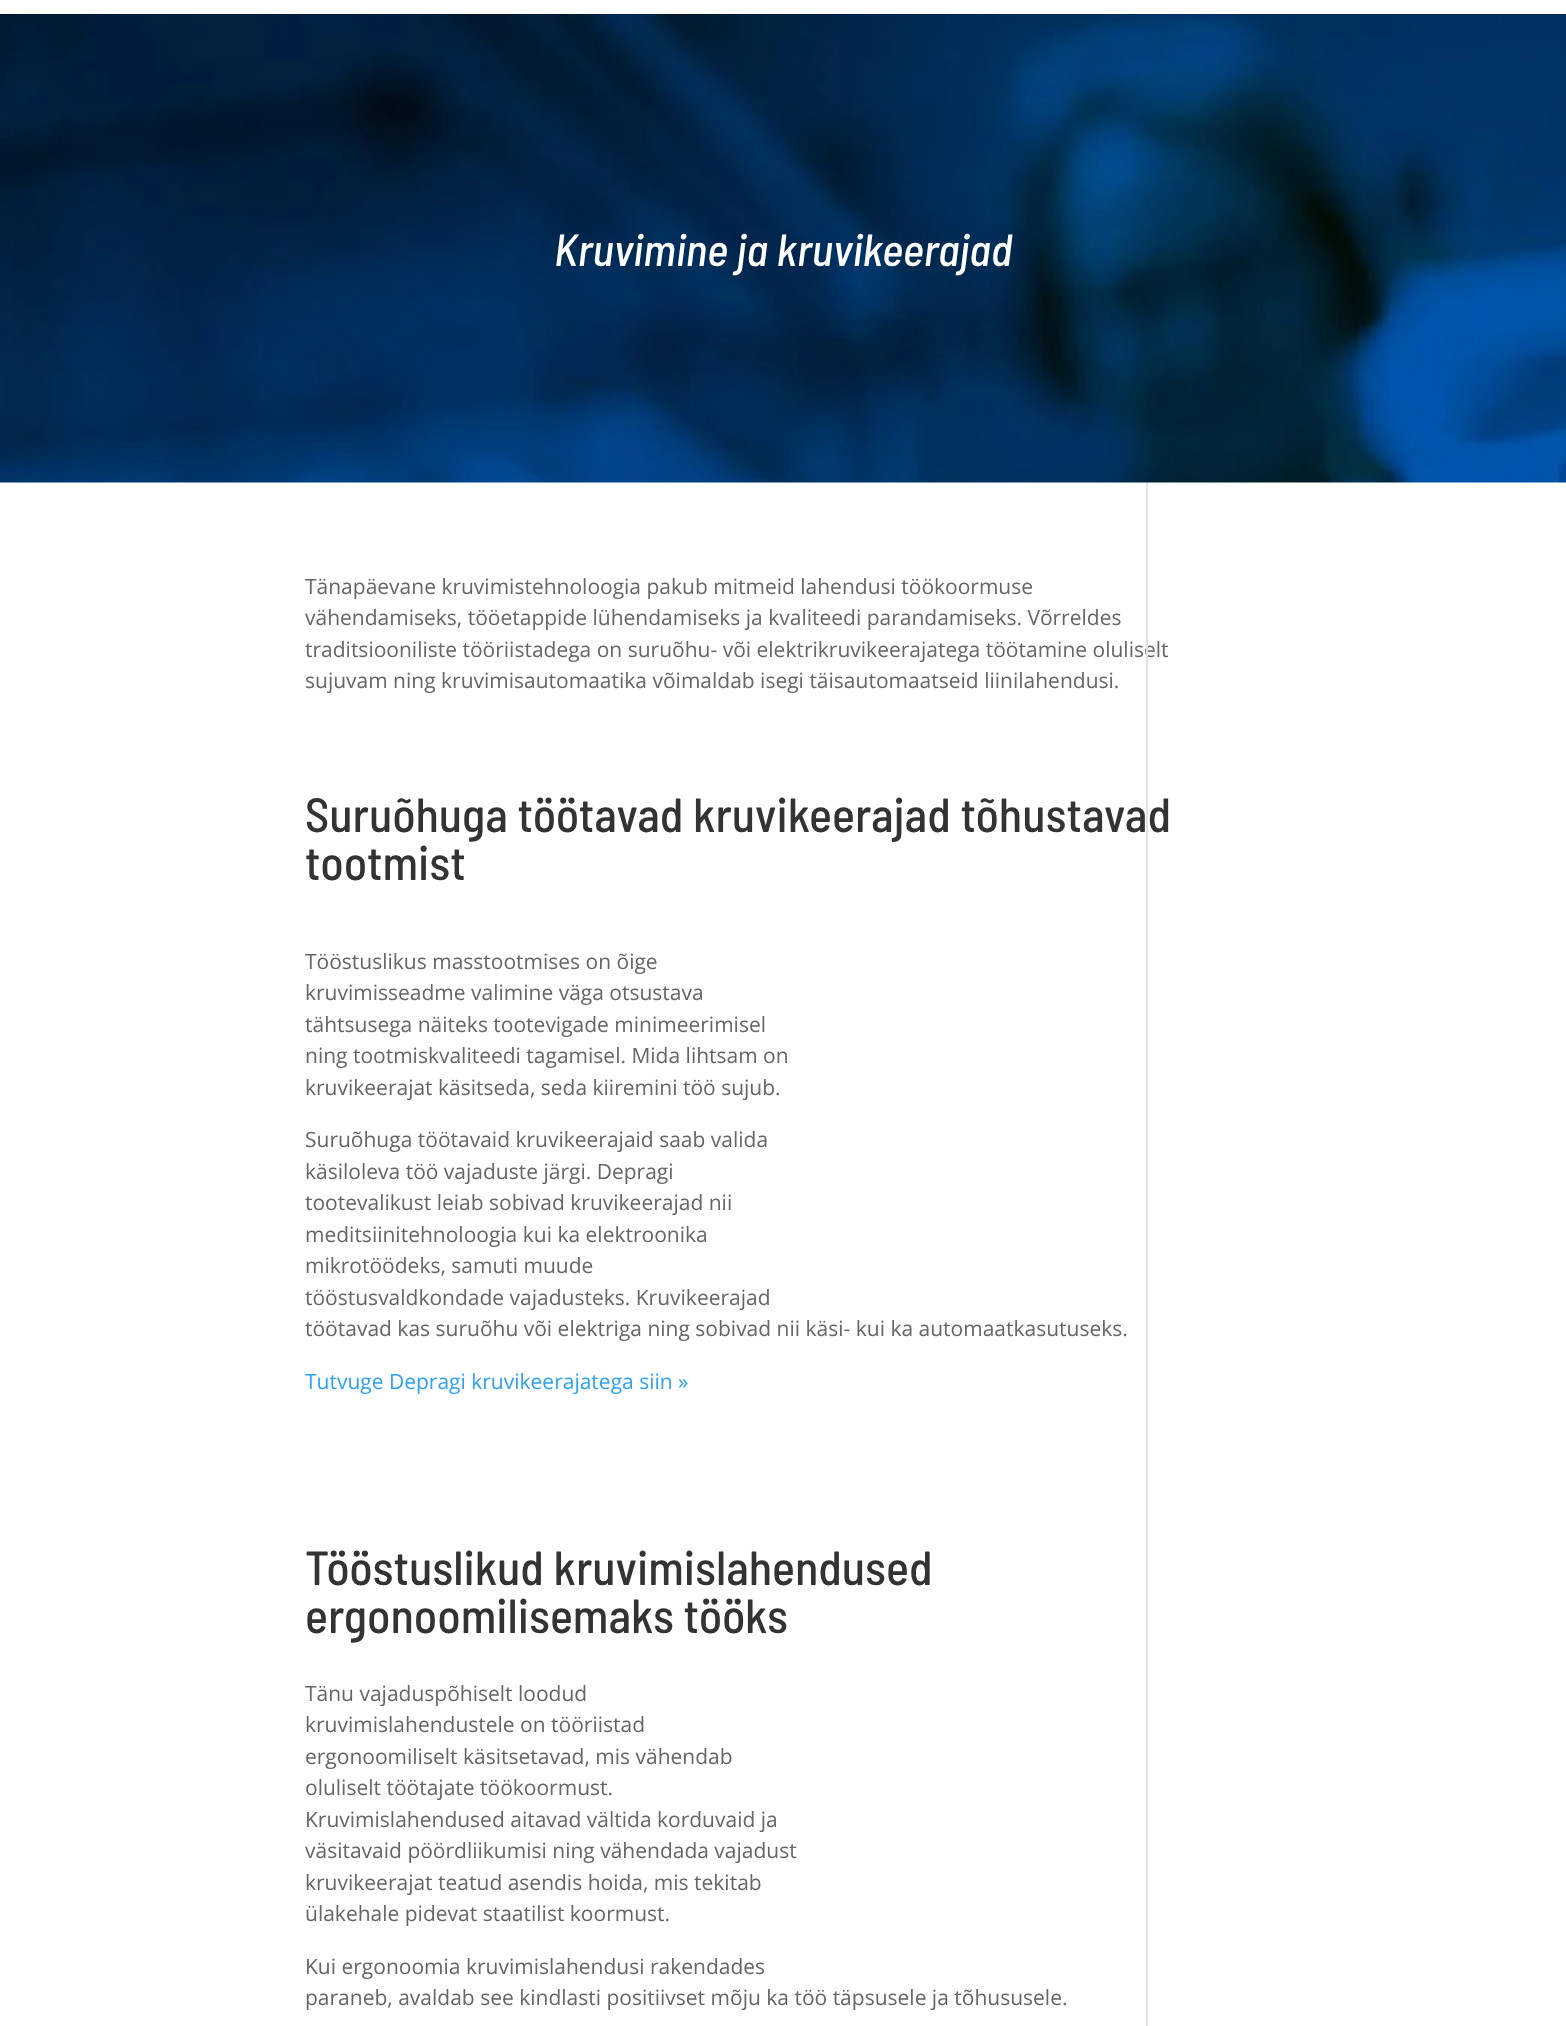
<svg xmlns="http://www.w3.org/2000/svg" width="1566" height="2026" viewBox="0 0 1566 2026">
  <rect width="100%" height="100%" fill="rgb(255,255,255)"/>
  <image x="0" y="14" width="1566" height="469" href="pic1.png"/>
  <rect x="0" y="14" width="1566" height="1" fill="rgba(0,0,0,0.1)"/>
  <text x="554" y="266" font-family="Barlow Semi Condensed" font-size="45" font-weight="500" font-style="italic" fill="rgb(255,255,255)">Kruvimine ja kruvikeerajad</text>
  <text x="305" y="657" font-family="Open Sans" font-size="21" fill="rgb(102,102,102)">traditsiooniliste tööriistadega on suruõhu- või elektrikruvikeerajatega töötamine oluliselt</text>
  <text x="305" y="832" font-family="Barlow Semi Condensed" font-size="48" font-weight="500" fill="rgb(51,51,51)">Suruõhuga töötavad kruvikeerajad tõhustavad</text>
  <rect x="1146" y="483" width="2" height="1543" fill="rgb(226,226,226)"/>
  <g font-family="Open Sans" font-size="21" fill="rgb(102,102,102)">
    <text>
      <tspan x="305" y="594">Tänapäevane kruvimistehnoloogia pakub mitmeid lahendusi töökoormuse</tspan>
      <tspan x="305" y="625">vähendamiseks, tööetappide lühendamiseks ja kvaliteedi parandamiseks. Võrreldes</tspan>
    </text>
    <text x="305" y="688">sujuvam ning kruvimisautomaatika võimaldab isegi täisautomaatseid liinilahendusi.</text>
  </g>
  <text x="305" y="880" font-family="Barlow Semi Condensed" font-size="48" font-weight="500" fill="rgb(51,51,51)">tootmist</text>
  <g font-family="Open Sans" font-size="21" fill="rgb(102,102,102)">
    <text>
      <tspan x="305" y="969">Tööstuslikus masstootmises on õige</tspan>
      <tspan x="305" y="1000">kruvimisseadme valimine väga otsustava</tspan>
      <tspan x="305" y="1032">tähtsusega näiteks tootevigade minimeerimisel</tspan>
      <tspan x="305" y="1063">ning tootmiskvaliteedi tagamisel. Mida lihtsam on</tspan>
      <tspan x="305" y="1095">kruvikeerajat käsitseda, seda kiiremini töö sujub.</tspan>
    </text>
    <text>
      <tspan x="305" y="1147">Suruõhuga töötavaid kruvikeerajaid saab valida</tspan>
      <tspan x="305" y="1179">käsiloleva töö vajaduste järgi. Depragi</tspan>
      <tspan x="305" y="1210">tootevalikust leiab sobivad kruvikeerajad nii</tspan>
      <tspan x="305" y="1242">meditsiinitehnoloogia kui ka elektroonika</tspan>
      <tspan x="305" y="1273">mikrotöödeks, samuti muude</tspan>
      <tspan x="305" y="1305">tööstusvaldkondade vajadusteks. Kruvikeerajad</tspan>
      <tspan x="305" y="1336">töötavad kas suruõhu või elektriga ning sobivad nii käsi- kui ka automaatkasutuseks.</tspan>
    </text>
  </g>
  <text x="305" y="1389" font-family="Open Sans" font-size="21" fill="rgb(46,163,242)">Tutvuge Depragi kruvikeerajatega siin »</text>
  <g font-family="Barlow Semi Condensed" font-size="48" font-weight="500" fill="rgb(51,51,51)">
    <text>
      <tspan x="305" y="1585">Tööstuslikud kruvimislahendused</tspan>
      <tspan x="305" y="1633">ergonoomilisemaks tööks</tspan>
    </text>
  </g>
  <g font-family="Open Sans" font-size="21" fill="rgb(102,102,102)">
    <text>
      <tspan x="305" y="1701">Tänu vajaduspõhiselt loodud</tspan>
      <tspan x="305" y="1732">kruvimislahendustele on tööriistad</tspan>
      <tspan x="305" y="1764">ergonoomiliselt käsitsetavad, mis vähendab</tspan>
      <tspan x="305" y="1795">oluliselt töötajate töökoormust.</tspan>
      <tspan x="305" y="1827">Kruvimislahendused aitavad vältida korduvaid ja</tspan>
      <tspan x="305" y="1858">väsitavaid pöördliikumisi ning vähendada vajadust</tspan>
      <tspan x="305" y="1890">kruvikeerajat teatud asendis hoida, mis tekitab</tspan>
      <tspan x="305" y="1921">ülakehale pidevat staatilist koormust.</tspan>
    </text>
    <text>
      <tspan x="305" y="1974">Kui ergonoomia kruvimislahendusi rakendades</tspan>
      <tspan x="305" y="2005">paraneb, avaldab see kindlasti positiivset mõju ka töö täpsusele ja tõhususele.</tspan>
    </text>
  </g>
</svg>
